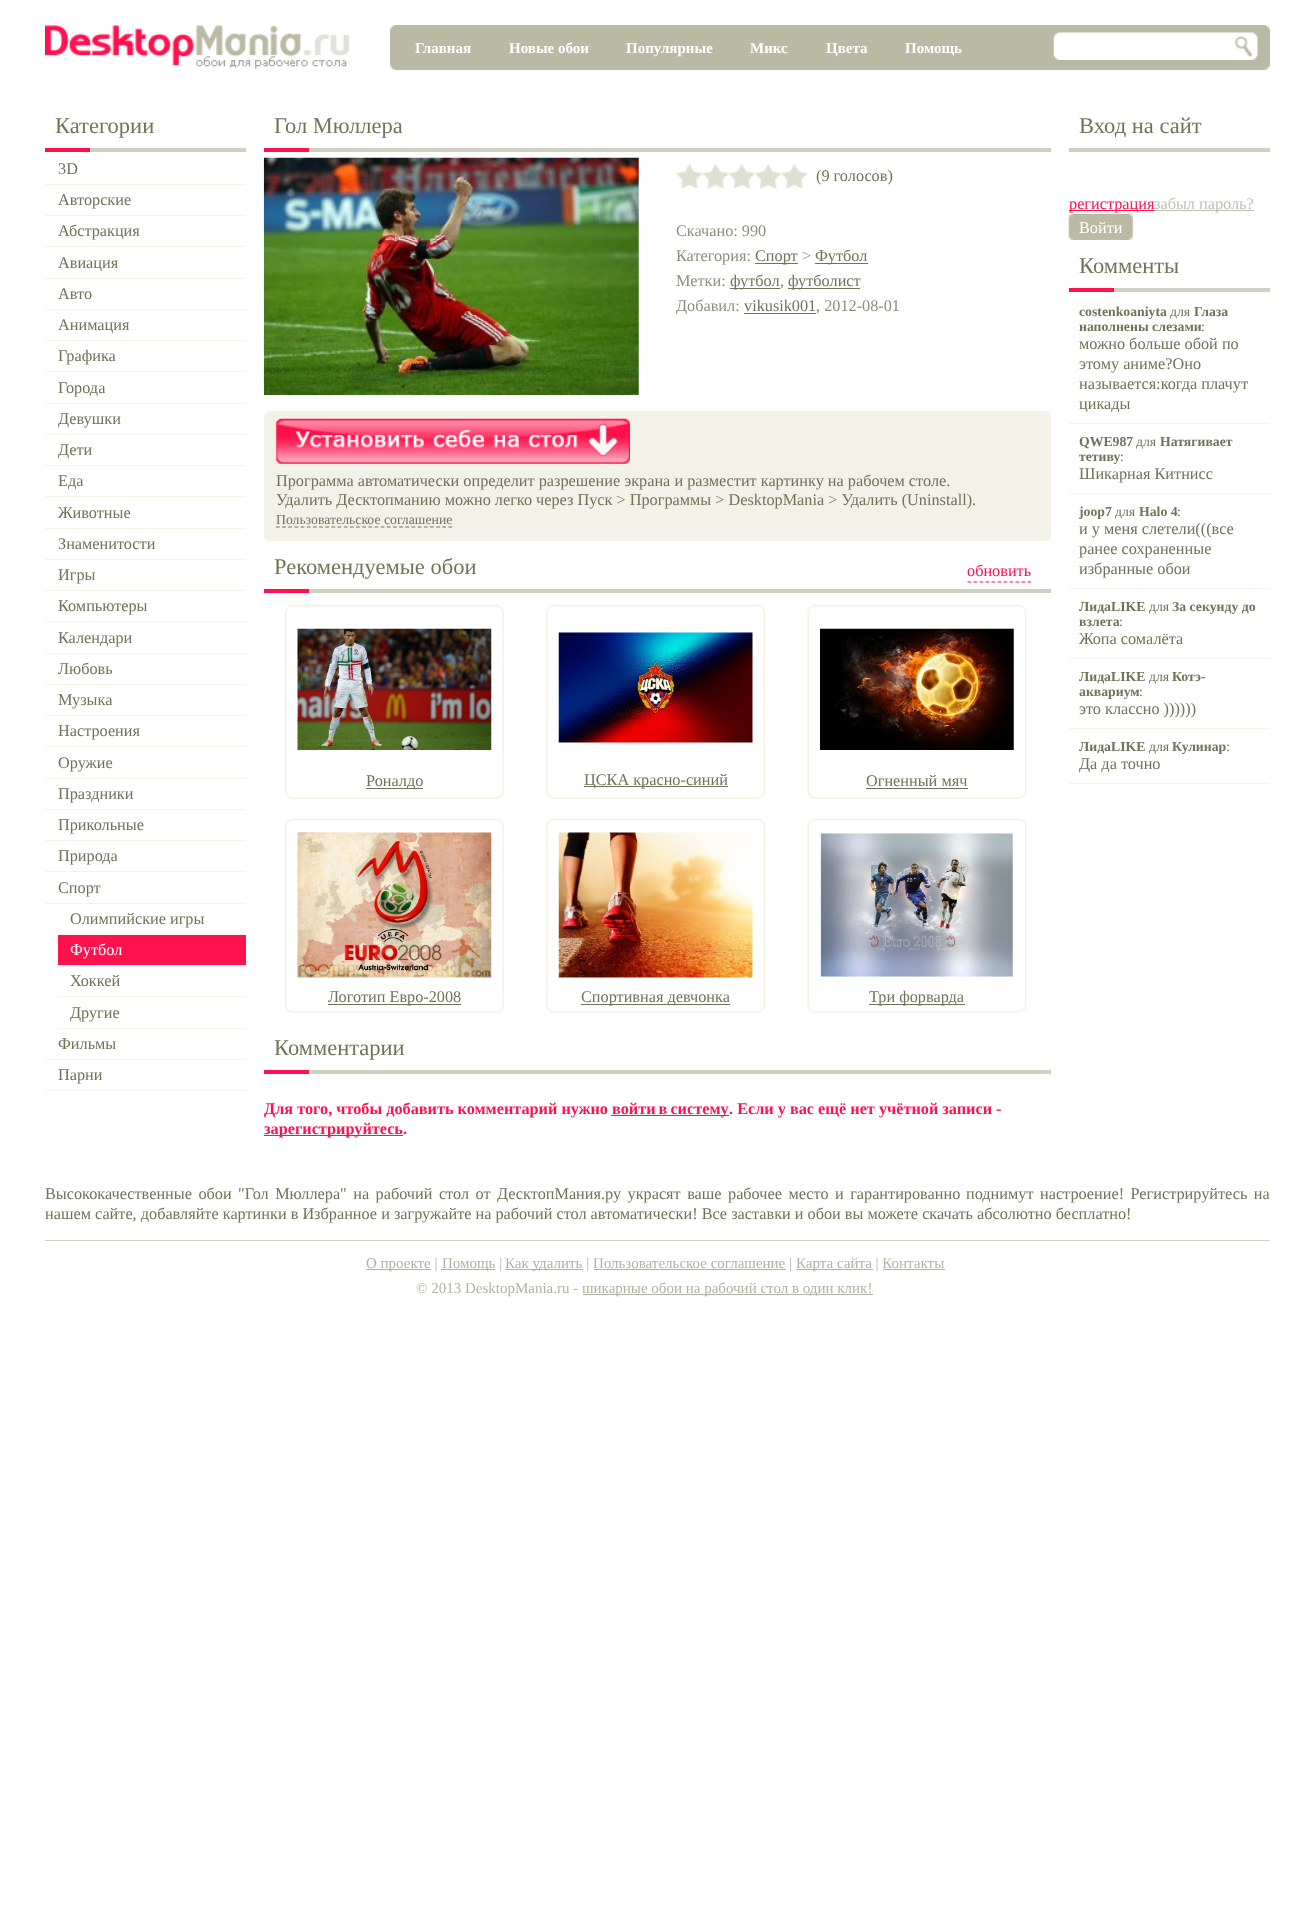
<svg xmlns="http://www.w3.org/2000/svg" width="1315" height="1907" viewBox="0 0 1315 1907">
  <rect width="100%" height="100%" fill="rgb(255,255,255)"/>
  <image x="45" y="25" width="305" height="44" href="pic1.png"/>
  <rect x="390" y="25" width="880" height="45" fill="rgb(186,186,164)"/>
  <image x="390" y="25" width="6" height="6" href="pic2.png"/>
  <image x="1264" y="25" width="6" height="6" href="pic3.png"/>
  <g font-family="Liberation Serif" font-size="15" font-weight="bold" fill="rgb(255,255,255)">
    <text x="415" y="53">Главная</text>
    <text x="509" y="53">Новые обои</text>
    <text x="626" y="53">Популярные</text>
    <text x="750" y="53">Микс</text>
    <text x="826" y="53">Цвета</text>
    <text x="905" y="53">Помощь</text>
  </g>
  <image x="1053" y="32" width="205" height="28" href="pic4.png"/>
  <rect x="1063" y="39" width="105" height="14" fill="rgb(255,255,255)"/>
  <image x="390" y="64" width="6" height="6" href="pic5.png"/>
  <image x="1264" y="64" width="6" height="6" href="pic6.png"/>
  <rect x="90" y="148" width="156" height="4" fill="rgb(208,208,192)"/>
  <text x="55" y="133" font-family="Liberation Serif" font-size="22.5" fill="rgb(114,114,88)">Категории</text>
  <rect x="45" y="148" width="45" height="4" fill="rgb(255,17,77)"/>
  <rect x="45" y="184" width="201" height="1" fill="rgb(243,243,230)"/>
  <text x="58" y="174" font-family="Liberation Serif" font-size="16.25" fill="rgb(114,114,88)">3D</text>
  <rect x="45" y="215" width="201" height="1" fill="rgb(243,243,230)"/>
  <text x="58" y="205" font-family="Liberation Serif" font-size="16.25" fill="rgb(114,114,88)">Авторские</text>
  <rect x="45" y="246" width="201" height="1" fill="rgb(243,243,230)"/>
  <text x="58" y="236" font-family="Liberation Serif" font-size="16.25" fill="rgb(114,114,88)">Абстракция</text>
  <rect x="45" y="278" width="201" height="1" fill="rgb(243,243,230)"/>
  <text x="58" y="268" font-family="Liberation Serif" font-size="16.25" fill="rgb(114,114,88)">Авиация</text>
  <rect x="45" y="309" width="201" height="1" fill="rgb(243,243,230)"/>
  <text x="58" y="299" font-family="Liberation Serif" font-size="16.25" fill="rgb(114,114,88)">Авто</text>
  <rect x="45" y="340" width="201" height="1" fill="rgb(243,243,230)"/>
  <text x="58" y="330" font-family="Liberation Serif" font-size="16.25" fill="rgb(114,114,88)">Анимация</text>
  <rect x="45" y="371" width="201" height="1" fill="rgb(243,243,230)"/>
  <text x="58" y="361" font-family="Liberation Serif" font-size="16.25" fill="rgb(114,114,88)">Графика</text>
  <rect x="45" y="403" width="201" height="1" fill="rgb(243,243,230)"/>
  <text x="58" y="393" font-family="Liberation Serif" font-size="16.25" fill="rgb(114,114,88)">Города</text>
  <rect x="45" y="434" width="201" height="1" fill="rgb(243,243,230)"/>
  <text x="58" y="424" font-family="Liberation Serif" font-size="16.25" fill="rgb(114,114,88)">Девушки</text>
  <rect x="45" y="465" width="201" height="1" fill="rgb(243,243,230)"/>
  <text x="58" y="455" font-family="Liberation Serif" font-size="16.25" fill="rgb(114,114,88)">Дети</text>
  <rect x="45" y="496" width="201" height="1" fill="rgb(243,243,230)"/>
  <text x="58" y="486" font-family="Liberation Serif" font-size="16.25" fill="rgb(114,114,88)">Еда</text>
  <rect x="45" y="528" width="201" height="1" fill="rgb(243,243,230)"/>
  <text x="58" y="518" font-family="Liberation Serif" font-size="16.25" fill="rgb(114,114,88)">Животные</text>
  <rect x="45" y="559" width="201" height="1" fill="rgb(243,243,230)"/>
  <text x="58" y="549" font-family="Liberation Serif" font-size="16.25" fill="rgb(114,114,88)">Знаменитости</text>
  <rect x="45" y="590" width="201" height="1" fill="rgb(243,243,230)"/>
  <text x="58" y="580" font-family="Liberation Serif" font-size="16.25" fill="rgb(114,114,88)">Игры</text>
  <rect x="45" y="621" width="201" height="1" fill="rgb(243,243,230)"/>
  <text x="58" y="611" font-family="Liberation Serif" font-size="16.25" fill="rgb(114,114,88)">Компьютеры</text>
  <rect x="45" y="653" width="201" height="1" fill="rgb(243,243,230)"/>
  <text x="58" y="643" font-family="Liberation Serif" font-size="16.25" fill="rgb(114,114,88)">Календари</text>
  <rect x="45" y="684" width="201" height="1" fill="rgb(243,243,230)"/>
  <text x="58" y="674" font-family="Liberation Serif" font-size="16.25" fill="rgb(114,114,88)">Любовь</text>
  <rect x="45" y="715" width="201" height="1" fill="rgb(243,243,230)"/>
  <text x="58" y="705" font-family="Liberation Serif" font-size="16.25" fill="rgb(114,114,88)">Музыка</text>
  <rect x="45" y="746" width="201" height="1" fill="rgb(243,243,230)"/>
  <text x="58" y="736" font-family="Liberation Serif" font-size="16.25" fill="rgb(114,114,88)">Настроения</text>
  <rect x="45" y="778" width="201" height="1" fill="rgb(243,243,230)"/>
  <text x="58" y="768" font-family="Liberation Serif" font-size="16.25" fill="rgb(114,114,88)">Оружие</text>
  <rect x="45" y="809" width="201" height="1" fill="rgb(243,243,230)"/>
  <text x="58" y="799" font-family="Liberation Serif" font-size="16.25" fill="rgb(114,114,88)">Праздники</text>
  <rect x="45" y="840" width="201" height="1" fill="rgb(243,243,230)"/>
  <text x="58" y="830" font-family="Liberation Serif" font-size="16.25" fill="rgb(114,114,88)">Прикольные</text>
  <rect x="45" y="871" width="201" height="1" fill="rgb(243,243,230)"/>
  <text x="58" y="861" font-family="Liberation Serif" font-size="16.25" fill="rgb(114,114,88)">Природа</text>
  <rect x="45" y="903" width="201" height="1" fill="rgb(243,243,230)"/>
  <text x="58" y="893" font-family="Liberation Serif" font-size="16.25" fill="rgb(114,114,88)">Спорт</text>
  <rect x="58" y="934" width="188" height="1" fill="rgb(243,243,230)"/>
  <text x="70" y="924" font-family="Liberation Serif" font-size="16.25" fill="rgb(114,114,88)">Олимпийские игры</text>
  <rect x="58" y="935" width="188" height="30" fill="rgb(255,17,77)"/>
  <rect x="58" y="965" width="188" height="1" fill="rgb(243,243,230)"/>
  <text x="70" y="955" font-family="Liberation Serif" font-size="16.25" fill="rgb(255,255,255)">Футбол</text>
  <rect x="58" y="996" width="188" height="1" fill="rgb(243,243,230)"/>
  <text x="70" y="986" font-family="Liberation Serif" font-size="16.25" fill="rgb(114,114,88)">Хоккей</text>
  <rect x="58" y="1028" width="188" height="1" fill="rgb(243,243,230)"/>
  <text x="70" y="1018" font-family="Liberation Serif" font-size="16.25" fill="rgb(114,114,88)">Другие</text>
  <rect x="45" y="1059" width="201" height="1" fill="rgb(243,243,230)"/>
  <text x="58" y="1049" font-family="Liberation Serif" font-size="16.25" fill="rgb(114,114,88)">Фильмы</text>
  <rect x="45" y="1090" width="201" height="1" fill="rgb(243,243,230)"/>
  <text x="58" y="1080" font-family="Liberation Serif" font-size="16.25" fill="rgb(114,114,88)">Парни</text>
  <rect x="309" y="148" width="742" height="4" fill="rgb(208,208,192)"/>
  <text x="274" y="133" font-family="Liberation Serif" font-size="22.5" fill="rgb(114,114,88)">Гол Мюллера</text>
  <rect x="264" y="148" width="45" height="4" fill="rgb(255,17,77)"/>
  <image x="263" y="157" width="376" height="238" href="pic7.png"/>
  <image x="676" y="163" width="132" height="26" href="pic8.png"/>
  <text x="816" y="181" font-family="Liberation Serif" font-size="16.25" fill="rgb(114,114,88)">(9 голосов)</text>
  <g font-family="Liberation Serif" font-size="16.25" fill="rgb(142,142,125)">
    <text>
      <tspan x="676" y="236">Скачано: 990</tspan>
      <tspan x="676" y="261">Категория:</tspan>
    </text>
  </g>
  <rect x="755" y="263" width="43" height="1" fill="rgb(114,114,88)"/>
  <text x="755" y="261" font-family="Liberation Serif" font-size="16.25" fill="rgb(114,114,88)">Спорт</text>
  <text x="802" y="261" font-family="Liberation Serif" font-size="16.25" fill="rgb(142,142,125)">&gt;</text>
  <rect x="815" y="263" width="53" height="1" fill="rgb(114,114,88)"/>
  <text x="815" y="261" font-family="Liberation Serif" font-size="16.25" fill="rgb(114,114,88)">Футбол</text>
  <text x="676" y="286" font-family="Liberation Serif" font-size="16.25" fill="rgb(142,142,125)">Метки:</text>
  <rect x="730" y="288" width="50" height="1" fill="rgb(114,114,88)"/>
  <text x="730" y="286" font-family="Liberation Serif" font-size="16.25" fill="rgb(114,114,88)">футбол</text>
  <text x="780" y="286" font-family="Liberation Serif" font-size="16.25" fill="rgb(142,142,125)">,</text>
  <rect x="788" y="288" width="72" height="1" fill="rgb(114,114,88)"/>
  <text x="788" y="286" font-family="Liberation Serif" font-size="16.25" fill="rgb(114,114,88)">футболист</text>
  <text x="676" y="311" font-family="Liberation Serif" font-size="16.25" fill="rgb(142,142,125)">Добавил:</text>
  <text x="744" y="311" font-family="Liberation Serif" font-size="16.25" fill="rgb(114,114,88)">vikusik001</text>
  <rect x="744" y="313" width="72" height="1" fill="rgb(114,114,88)"/>
  <text x="816" y="311" font-family="Liberation Serif" font-size="16.25" fill="rgb(142,142,125)">, 2012-08-01</text>
  <rect x="264" y="411" width="787" height="130" fill="rgb(242,242,232)"/>
  <image x="263" y="411" width="5" height="5" href="pic9.png"/>
  <image x="1046" y="411" width="5" height="5" href="pic10.png"/>
  <image x="276" y="418" width="354" height="46" href="pic11.png"/>
  <g font-family="Liberation Serif" font-size="16.25" fill="rgb(114,114,88)">
    <text>
      <tspan x="276" y="486">Программа автоматически определит разрешение экрана и разместит картинку на рабочем столе.</tspan>
      <tspan x="276" y="505">Удалить Десктопманию можно легко через Пуск &gt; Программы &gt; DesktopMania &gt; Удалить (Uninstall).</tspan>
    </text>
  </g>
  <text x="276" y="524" font-family="Liberation Serif" font-size="13.75" fill="rgb(114,114,88)">Пользовательское соглашение</text>
  <path d="M276 527H452.5" fill="none" stroke="rgb(114,114,88)" stroke-width="1.2" stroke-dasharray="3.75 2.41"/>
  <image x="264" y="537" width="5" height="4" href="pic12.png"/>
  <image x="1046" y="537" width="5" height="4" href="pic13.png"/>
  <rect x="309" y="589" width="742" height="4" fill="rgb(208,208,192)"/>
  <text x="274" y="574" font-family="Liberation Serif" font-size="22.5" fill="rgb(114,114,88)">Рекомендуемые обои</text>
  <path d="M967.5 582H1031" fill="none" stroke="rgb(251,17,77)" stroke-width="1.2" stroke-dasharray="3.75 2.25"/>
  <text x="967" y="576" font-family="Liberation Serif" font-size="16.25" fill="rgb(255,17,77)">обновить</text>
  <rect x="264" y="589" width="45" height="4" fill="rgb(255,17,77)"/>
  <image x="285" y="605" width="219" height="194" href="pic14.png"/>
  <image x="297" y="628" width="195" height="122" href="pic15.png"/>
  <rect x="366" y="788" width="57" height="1" fill="rgb(114,114,88)"/>
  <text x="366" y="786" font-family="Liberation Serif" font-size="16.25" fill="rgb(114,114,88)">Роналдо</text>
  <image x="546" y="605" width="219" height="194" href="pic16.png"/>
  <image x="558" y="632" width="195" height="111" href="pic17.png"/>
  <rect x="584" y="786" width="144" height="1" fill="rgb(114,114,88)"/>
  <text x="584" y="785" font-family="Liberation Serif" font-size="16.25" fill="rgb(114,114,88)">ЦСКА красно-синий</text>
  <image x="807" y="605" width="220" height="194" href="pic18.png"/>
  <image x="820" y="628" width="194" height="122" href="pic19.png"/>
  <text x="866" y="786" font-family="Liberation Serif" font-size="16.25" fill="rgb(114,114,88)">Огненный мяч</text>
  <rect x="866" y="788" width="102" height="1" fill="rgb(114,114,88)"/>
  <image x="285" y="818" width="219" height="195" href="pic20.png"/>
  <image x="297" y="832" width="195" height="146" href="pic21.png"/>
  <rect x="328" y="1004" width="133" height="1" fill="rgb(114,114,88)"/>
  <text x="328" y="1002" font-family="Liberation Serif" font-size="16.25" fill="rgb(114,114,88)">Логотип Евро-2008</text>
  <image x="546" y="818" width="219" height="195" href="pic22.png"/>
  <image x="558" y="832" width="195" height="146" href="pic23.png"/>
  <rect x="581" y="1004" width="149" height="1" fill="rgb(114,114,88)"/>
  <text x="581" y="1002" font-family="Liberation Serif" font-size="16.25" fill="rgb(114,114,88)">Спортивная девчонка</text>
  <image x="807" y="818" width="220" height="195" href="pic24.png"/>
  <image x="820" y="832" width="194" height="145" href="pic25.png"/>
  <rect x="869" y="1004" width="96" height="1" fill="rgb(114,114,88)"/>
  <text x="869" y="1002" font-family="Liberation Serif" font-size="16.25" fill="rgb(114,114,88)">Три форварда</text>
  <rect x="309" y="1070" width="742" height="4" fill="rgb(208,208,192)"/>
  <text x="274" y="1055" font-family="Liberation Serif" font-size="22.5" fill="rgb(114,114,88)">Комментарии</text>
  <rect x="264" y="1070" width="45" height="4" fill="rgb(255,17,77)"/>
  <text x="264" y="1114" font-family="Liberation Serif" font-size="16.25" font-weight="bold" fill="rgb(255,17,77)">Для того, чтобы добавить комментарий нужно</text>
  <rect x="611" y="1115" width="118" height="1" fill="rgb(255,17,77)"/>
  <g font-family="Liberation Serif" font-size="16.25" font-weight="bold" fill="rgb(255,17,77)">
    <text x="612" y="1114" word-spacing="-1">войти в систему</text>
    <text x="729" y="1114">. Если у вас ещё нет учётной записи -</text>
  </g>
  <rect x="264" y="1135" width="139" height="1" fill="rgb(255,17,77)"/>
  <text x="264" y="1134" font-family="Liberation Serif" font-size="16.25" font-weight="bold" fill="rgb(255,17,77)">зарегистрируйтесь.</text>
  <rect x="1069" y="148" width="201" height="4" fill="rgb(208,208,192)"/>
  <text x="1079" y="133" font-family="Liberation Serif" font-size="22.5" fill="rgb(114,114,88)">Вход на сайт</text>
  <rect x="1069" y="210" width="85" height="1" fill="rgb(255,17,77)"/>
  <text x="1069" y="209" font-family="Liberation Serif" font-size="16.25" fill="rgb(255,17,77)">регистрация</text>
  <rect x="1154" y="210" width="100" height="1" fill="rgb(192,192,181)"/>
  <text x="1154" y="209" font-family="Liberation Serif" font-size="16.25" fill="rgb(192,192,181)">забыл пароль?</text>
  <image x="1068" y="213" width="65" height="27" href="pic26.png"/>
  <image x="1127" y="213" width="6" height="27" href="pic27.png"/>
  <text x="1079" y="233" font-family="Liberation Serif" font-size="16.25" fill="rgb(255,255,255)">Войти</text>
  <rect x="1114" y="288" width="156" height="4" fill="rgb(208,208,192)"/>
  <text x="1079" y="273" font-family="Liberation Serif" font-size="22.5" fill="rgb(114,114,88)">Комменты</text>
  <rect x="1069" y="288" width="45" height="4" fill="rgb(255,17,77)"/>
  <rect x="1069" y="423" width="201" height="1" fill="rgb(243,243,230)"/>
  <text x="1079" y="316" font-family="Liberation Serif" font-size="13.75" font-weight="bold" fill="rgb(114,114,88)">costenkoaniyta</text>
  <text x="1170" y="316" font-family="Liberation Serif" font-size="13.75" fill="rgb(114,114,88)">для</text>
  <g font-family="Liberation Serif" font-size="13.75" font-weight="bold" fill="rgb(114,114,88)">
    <text x="1194" y="316">Глаза</text>
    <text x="1079" y="331">наполнены слезами</text>
  </g>
  <text x="1201" y="331" font-family="Liberation Serif" font-size="13.75" fill="rgb(114,114,88)">:</text>
  <g font-family="Liberation Serif" font-size="16.25" fill="rgb(114,114,88)">
    <text>
      <tspan x="1079" y="349">можно больше обой по</tspan>
      <tspan x="1079" y="369">этому аниме?Оно</tspan>
      <tspan x="1079" y="389">называется:когда плачут</tspan>
      <tspan x="1079" y="409">цикады</tspan>
    </text>
  </g>
  <rect x="1069" y="493" width="201" height="1" fill="rgb(243,243,230)"/>
  <text x="1079" y="446" font-family="Liberation Serif" font-size="13.75" font-weight="bold" fill="rgb(114,114,88)">QWE987</text>
  <text x="1136" y="446" font-family="Liberation Serif" font-size="13.75" fill="rgb(114,114,88)">для</text>
  <g font-family="Liberation Serif" font-size="13.75" font-weight="bold" fill="rgb(114,114,88)">
    <text x="1160" y="446">Натягивает</text>
    <text x="1079" y="461">тетиву</text>
  </g>
  <text x="1120" y="461" font-family="Liberation Serif" font-size="13.75" fill="rgb(114,114,88)">:</text>
  <text x="1079" y="479" font-family="Liberation Serif" font-size="16.25" fill="rgb(114,114,88)">Шикарная Китнисс</text>
  <rect x="1069" y="588" width="201" height="1" fill="rgb(243,243,230)"/>
  <text x="1079" y="516" font-family="Liberation Serif" font-size="13.75" font-weight="bold" fill="rgb(114,114,88)">joop7</text>
  <text x="1115" y="516" font-family="Liberation Serif" font-size="13.75" fill="rgb(114,114,88)">для</text>
  <text x="1139" y="516" font-family="Liberation Serif" font-size="13.75" font-weight="bold" fill="rgb(114,114,88)">Halo 4</text>
  <text x="1177" y="516" font-family="Liberation Serif" font-size="13.75" fill="rgb(114,114,88)">:</text>
  <g font-family="Liberation Serif" font-size="16.25" fill="rgb(114,114,88)">
    <text>
      <tspan x="1079" y="534">и у меня слетели(((все</tspan>
      <tspan x="1079" y="554">ранее сохраненные</tspan>
      <tspan x="1079" y="574">избранные обои</tspan>
    </text>
  </g>
  <rect x="1069" y="658" width="201" height="1" fill="rgb(243,243,230)"/>
  <text x="1079" y="611" font-family="Liberation Serif" font-size="13.75" font-weight="bold" fill="rgb(114,114,88)">ЛидаLIKE</text>
  <text x="1149" y="611" font-family="Liberation Serif" font-size="13.75" fill="rgb(114,114,88)">для</text>
  <g font-family="Liberation Serif" font-size="13.75" font-weight="bold" fill="rgb(114,114,88)">
    <text x="1172" y="611">За секунду до</text>
    <text x="1079" y="626">взлета</text>
  </g>
  <text x="1119" y="626" font-family="Liberation Serif" font-size="13.75" fill="rgb(114,114,88)">:</text>
  <text x="1079" y="644" font-family="Liberation Serif" font-size="16.25" fill="rgb(114,114,88)">Жопа сомалёта</text>
  <rect x="1069" y="728" width="201" height="1" fill="rgb(243,243,230)"/>
  <text x="1079" y="681" font-family="Liberation Serif" font-size="13.75" font-weight="bold" fill="rgb(114,114,88)">ЛидаLIKE</text>
  <text x="1149" y="681" font-family="Liberation Serif" font-size="13.75" fill="rgb(114,114,88)">для</text>
  <g font-family="Liberation Serif" font-size="13.75" font-weight="bold" fill="rgb(114,114,88)">
    <text x="1172" y="681">Котэ-</text>
    <text x="1079" y="696">аквариум</text>
  </g>
  <text x="1139" y="696" font-family="Liberation Serif" font-size="13.75" fill="rgb(114,114,88)">:</text>
  <text x="1079" y="714" font-family="Liberation Serif" font-size="16.25" fill="rgb(114,114,88)">это классно ))))))</text>
  <rect x="1069" y="783" width="201" height="1" fill="rgb(243,243,230)"/>
  <text x="1079" y="751" font-family="Liberation Serif" font-size="13.75" font-weight="bold" fill="rgb(114,114,88)">ЛидаLIKE</text>
  <text x="1149" y="751" font-family="Liberation Serif" font-size="13.75" fill="rgb(114,114,88)">для</text>
  <text x="1172" y="751" font-family="Liberation Serif" font-size="13.75" font-weight="bold" fill="rgb(114,114,88)">Кулинар</text>
  <text x="1226" y="751" font-family="Liberation Serif" font-size="13.75" fill="rgb(114,114,88)">:</text>
  <g font-family="Liberation Serif" font-size="16.25" fill="rgb(114,114,88)">
    <text x="1079" y="769">Да да точно</text>
    <text x="45" y="1199" word-spacing="2.4">Высококачественные обои "Гол Мюллера" на рабочий стол от ДесктопМания.ру украсят ваше рабочее место и гарантированно</text>
    <text x="966" y="1199" word-spacing="2.4">поднимут настроение! Регистрируйтесь на</text>
    <text x="45" y="1219">нашем сайте, добавляйте картинки в Избранное и загружайте на рабочий стол автоматически! Все заставки и обои вы можете скачать абсолютно бесплатно!</text>
  </g>
  <rect x="45" y="1240" width="1225" height="1" fill="rgb(207,207,191)"/>
  <rect x="366" y="1269" width="65" height="1" fill="rgb(178,178,163)"/>
  <text x="366" y="1268" font-family="Liberation Serif" font-size="15" fill="rgb(178,178,163)">О проекте |</text>
  <rect x="441" y="1269" width="54" height="1" fill="rgb(178,178,163)"/>
  <text x="442" y="1268" font-family="Liberation Serif" font-size="15" fill="rgb(178,178,163)">Помощь |</text>
  <rect x="505" y="1269" width="78" height="1" fill="rgb(178,178,163)"/>
  <text x="505" y="1268" font-family="Liberation Serif" font-size="15" fill="rgb(178,178,163)">Как удалить | Пользовательское соглашение |</text>
  <rect x="796" y="1269" width="77" height="1" fill="rgb(178,178,163)"/>
  <text x="796" y="1268" font-family="Liberation Serif" font-size="15" fill="rgb(178,178,163)">Карта сайта | Контакты</text>
  <rect x="594" y="1269" width="192" height="1" fill="rgb(178,178,163)"/>
  <rect x="883" y="1269" width="62" height="1" fill="rgb(178,178,163)"/>
  <text x="416" y="1293" font-family="Liberation Serif" font-size="15" fill="rgb(178,178,163)">© 2013 DesktopMania.ru -</text>
  <rect x="583" y="1294" width="290" height="1" fill="rgb(178,178,163)"/>
  <text x="582" y="1293" font-family="Liberation Serif" font-size="15" fill="rgb(178,178,163)">шикарные обои на рабочий стол в один клик!</text>
</svg>
